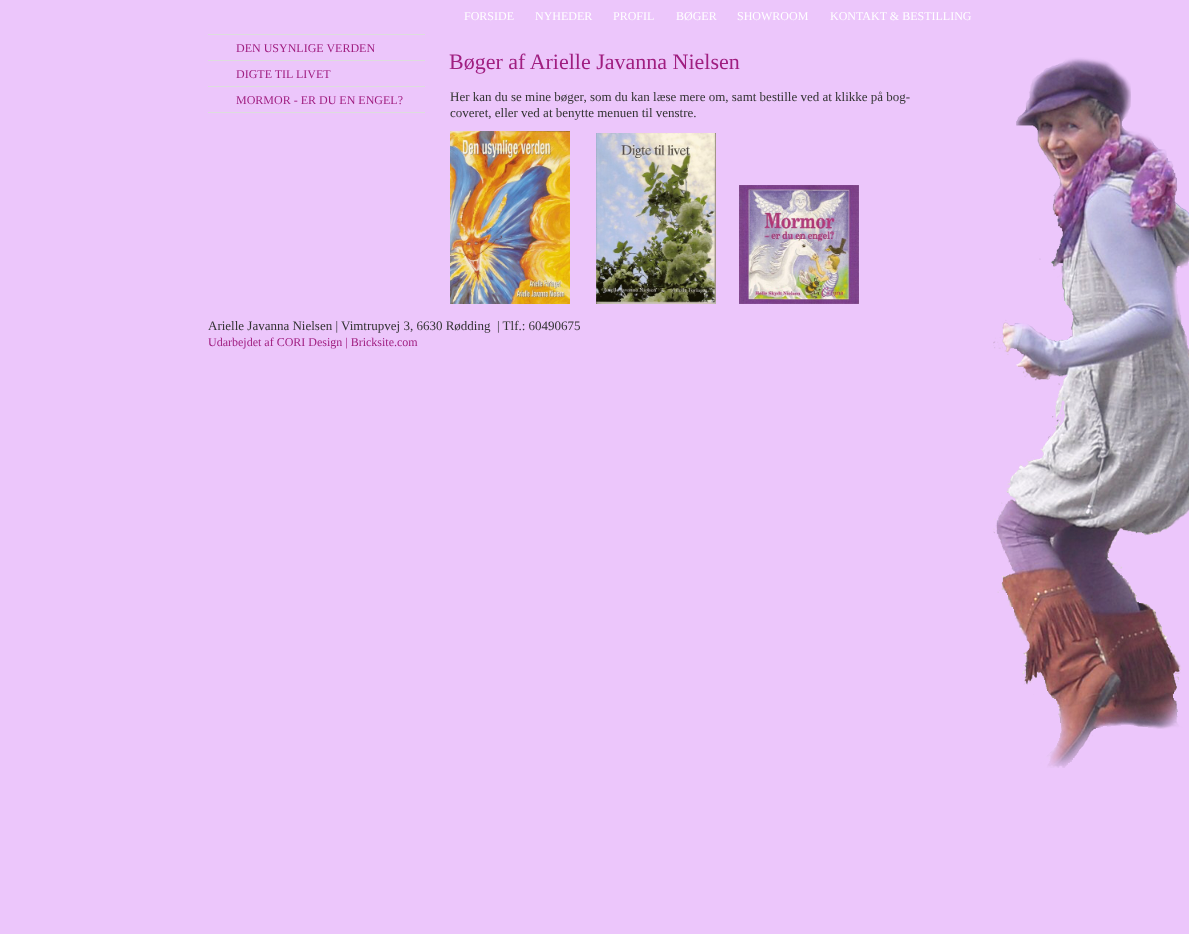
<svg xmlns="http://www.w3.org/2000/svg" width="1189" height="934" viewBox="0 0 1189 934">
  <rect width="100%" height="100%" fill="rgb(236,198,251)"/>
  <image x="993" y="57" width="196" height="711" href="pic1.png"/>
  <g font-family="Liberation Serif" font-size="12" fill="rgb(255,255,255)">
    <text x="464" y="20">FORSIDE</text>
    <text x="535" y="20">NYHEDER</text>
    <text x="613" y="20">PROFIL</text>
    <text x="676" y="20">BØGER</text>
    <text x="737" y="20">SHOWROOM</text>
    <text x="830" y="20">KONTAKT &amp; BESTILLING</text>
  </g>
  <rect x="208" y="34" width="217" height="1" fill="rgb(221,221,221)"/>
  <text x="236" y="52" font-family="Liberation Serif" font-size="12" fill="rgb(160,30,128)">DEN USYNLIGE VERDEN</text>
  <rect x="208" y="60" width="217" height="1" fill="rgb(221,221,221)"/>
  <text x="236" y="78" font-family="Liberation Serif" font-size="12" fill="rgb(160,30,128)">DIGTE TIL LIVET</text>
  <rect x="208" y="86" width="217" height="1" fill="rgb(221,221,221)"/>
  <text x="236" y="104" font-family="Liberation Serif" font-size="12" fill="rgb(160,30,128)">MORMOR - ER DU EN ENGEL?</text>
  <rect x="208" y="112" width="217" height="1" fill="rgb(221,221,221)"/>
  <text x="449" y="69" font-family="Liberation Serif" font-size="22" fill="rgb(160,30,128)">Bøger af Arielle Javanna Nielsen</text>
  <g font-family="Liberation Serif" font-size="13" fill="rgb(51,51,51)">
    <text>
      <tspan x="450" y="101">Her kan du se mine bøger, som du kan læse mere om, samt bestille ved at klikke på bog-</tspan>
      <tspan x="450" y="117">coveret, eller ved at benytte menuen til venstre.</tspan>
    </text>
  </g>
  <image x="450" y="131" width="120" height="173" href="pic2.png"/>
  <image x="596" y="133" width="120" height="171" href="pic3.png"/>
  <image x="739" y="185" width="120" height="119" href="pic4.png"/>
  <text x="208" y="330" font-family="Liberation Serif" font-size="13" fill="rgb(51,51,51)" xml:space="preserve">Arielle Javanna Nielsen | Vimtrupvej 3, 6630 Rødding  | Tlf.: 60490675</text>
  <text x="208" y="346" font-family="Liberation Serif" font-size="12" fill="rgb(160,30,128)">Udarbejdet af CORI Design | Bricksite.com</text>
</svg>
